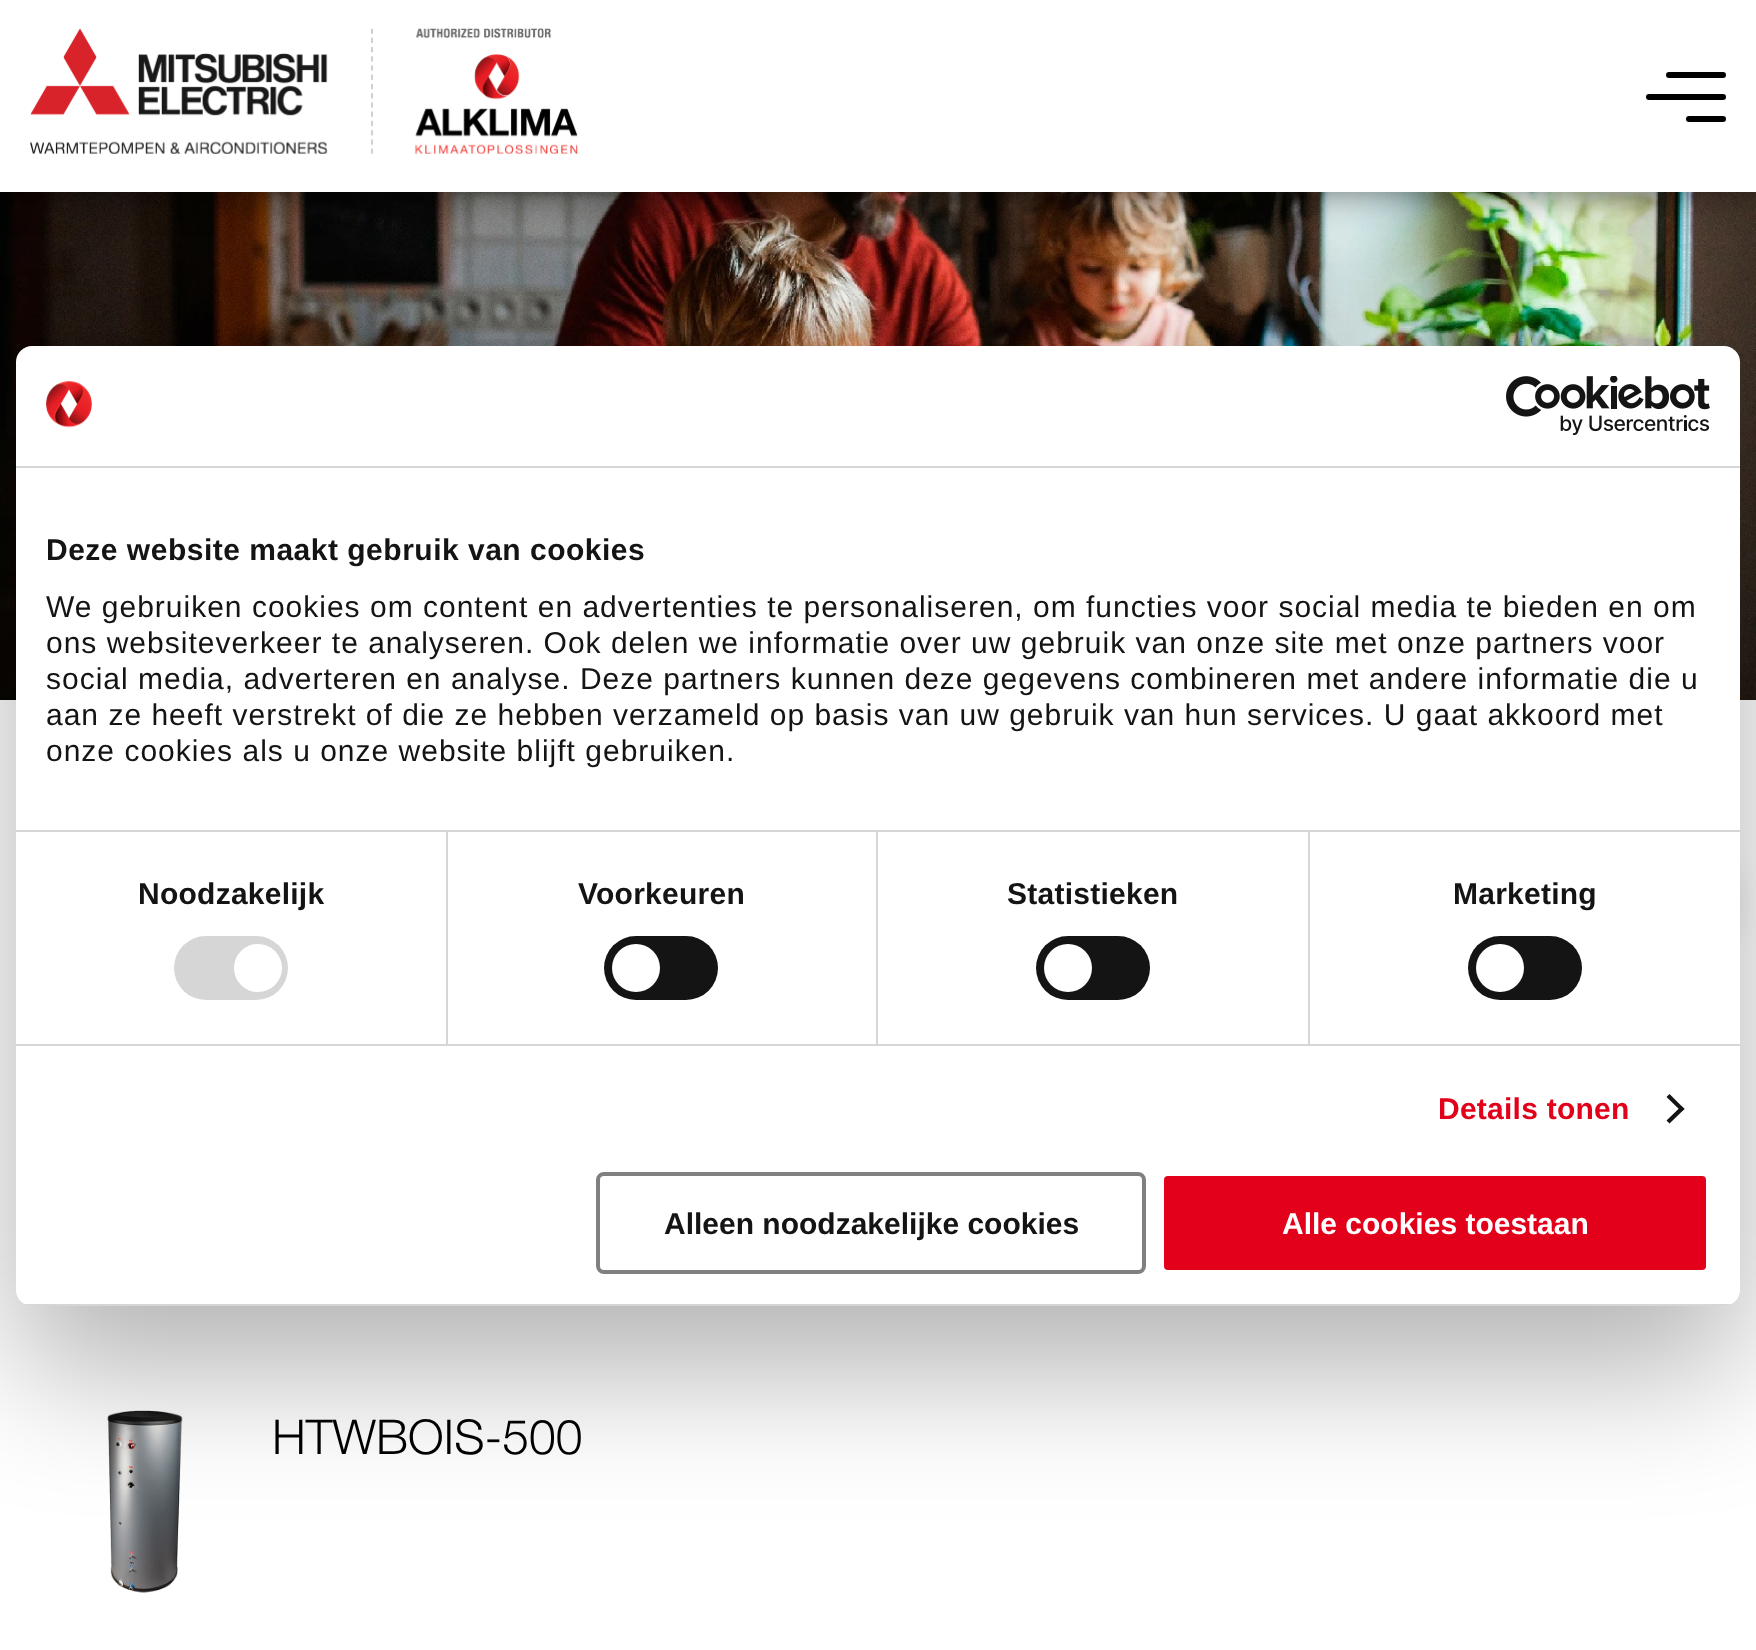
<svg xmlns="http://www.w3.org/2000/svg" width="1756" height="1650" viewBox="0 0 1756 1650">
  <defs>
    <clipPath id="clip1"><rect x="16" y="346" width="1724" height="960" rx="16"/></clipPath>
  </defs>
  <rect width="100%" height="100%" fill="rgb(255,255,255)"/>
  <image x="0" y="192" width="1756" height="508" href="pic4.png"/>
  <image x="107" y="1410" width="76" height="183" href="pic5.png"/>
  <rect x="16" y="410" width="1724" height="960" rx="16" fill="rgba(0,0,0,0.3)" filter="blur(68px)"/>
  <rect x="1592" y="870" width="144" height="66" rx="12" fill="rgba(0,0,0,0.1)" filter="blur(14px)"/>
  <rect x="16" y="346" width="1724" height="960" rx="16" fill="rgb(255,255,255)"/>
  <rect x="16" y="466" width="1724" height="2" fill="rgb(214,214,214)"/>
  <image x="46" y="381" width="46" height="47" href="pic1.png"/>
  <image x="1506" y="376" width="204" height="60" href="pic2.png"/>
  <rect x="16" y="830" width="1724" height="2" fill="rgb(214,214,214)"/>
  <text x="46" y="560" font-family="Liberation Sans" font-size="30" font-weight="bold" letter-spacing="0.5" fill="rgb(20,20,20)">Deze website maakt gebruik van cookies</text>
  <g font-family="Liberation Sans" font-size="30" letter-spacing="1" fill="rgb(20,20,20)">
    <text>
      <tspan x="46" y="617">We gebruiken cookies om content en advertenties te personaliseren, om functies voor social media te bieden en om</tspan>
      <tspan x="46" y="653">ons websiteverkeer te analyseren. Ook delen we informatie over uw gebruik van onze site met onze partners voor</tspan>
      <tspan x="46" y="689">social media, adverteren en analyse. Deze partners kunnen deze gegevens combineren met andere informatie die u</tspan>
      <tspan x="46" y="725">aan ze heeft verstrekt of die ze hebben verzameld op basis van uw gebruik van hun services. U gaat akkoord met</tspan>
      <tspan x="46" y="761">onze cookies als u onze website blijft gebruiken.</tspan>
    </text>
  </g>
  <rect x="16" y="1044" width="1724" height="2" fill="rgb(214,214,214)"/>
  <rect x="446" y="832" width="2" height="212" fill="rgb(214,214,214)"/>
  <text x="138" y="904" font-family="Liberation Sans" font-size="30" font-weight="bold" letter-spacing="0.25" fill="rgb(20,20,20)">Noodzakelijk</text>
  <rect x="174" y="936" width="114" height="64" rx="32" fill="rgb(214,214,214)"/>
  <circle cx="258" cy="968" r="24" fill="rgb(255,255,255)"/>
  <rect x="876" y="832" width="2" height="212" fill="rgb(214,214,214)"/>
  <text x="578" y="904" font-family="Liberation Sans" font-size="30" font-weight="bold" letter-spacing="0.25" fill="rgb(20,20,20)">Voorkeuren</text>
  <rect x="604" y="936" width="114" height="64" rx="32" fill="rgb(20,20,20)"/>
  <circle cx="636" cy="968" r="24" fill="rgb(255,255,255)"/>
  <rect x="1308" y="832" width="2" height="212" fill="rgb(214,214,214)"/>
  <text x="1007" y="904" font-family="Liberation Sans" font-size="30" font-weight="bold" letter-spacing="0.25" fill="rgb(20,20,20)">Statistieken</text>
  <rect x="1036" y="936" width="114" height="64" rx="32" fill="rgb(20,20,20)"/>
  <circle cx="1068" cy="968" r="24" fill="rgb(255,255,255)"/>
  <text x="1453" y="904" font-family="Liberation Sans" font-size="30" font-weight="bold" letter-spacing="0.25" fill="rgb(20,20,20)">Marketing</text>
  <rect x="1468" y="936" width="114" height="64" rx="32" fill="rgb(20,20,20)"/>
  <circle cx="1500" cy="968" r="24" fill="rgb(255,255,255)"/>
  <text x="1438" y="1119" font-family="Liberation Sans" font-size="30" font-weight="bold" letter-spacing="0.25" fill="rgb(226,0,26)">Details tonen</text>
  <path d="M1669.5 1094L1684.5 1109L1681.5 1111.5L1666.5 1097Z" fill="rgb(20,20,20)"/>
  <path d="M1681.5 1106L1684.5 1109L1669.5 1123.5L1666.5 1120.5Z" fill="rgb(20,20,20)"/>
  <g clip-path="url(#clip1)">
    <rect x="16" y="1304" width="1724" height="2" fill="rgb(214,214,214)"/>
  </g>
  <rect x="598" y="1174" width="546" height="98" rx="6" fill="none" stroke="rgb(128,128,128)" stroke-width="4"/>
  <text x="664" y="1234" font-family="Liberation Sans" font-size="30" font-weight="bold" fill="rgb(20,20,20)">Alleen noodzakelijke cookies</text>
  <rect x="1162" y="1174" width="546" height="98" rx="6" fill="rgb(226,0,26)" stroke="rgb(255,255,255)" stroke-width="4"/>
  <text x="1282" y="1234" font-family="Liberation Sans" font-size="30" font-weight="bold" fill="rgb(255,255,255)">Alle cookies toestaan</text>
  <rect x="0" y="2" width="1756" height="192" fill="rgba(0,0,0,0.5)" filter="blur(18px)"/>
  <rect x="0" y="0" width="1756" height="192" fill="rgb(255,255,255)"/>
  <image x="30" y="28" width="548" height="126" href="pic3.png"/>
  <rect x="1666" y="72" width="60" height="6" rx="3" fill="rgb(0,0,0)"/>
  <rect x="1646" y="94" width="80" height="6" rx="3" fill="rgb(0,0,0)"/>
  <rect x="1686" y="116" width="40" height="6" rx="3" fill="rgb(0,0,0)"/>
  <text x="272" y="1454" font-family="'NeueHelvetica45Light'" font-size="48" font-weight="300" fill="rgb(0,0,0)">HTWBOIS-500</text>
</svg>
